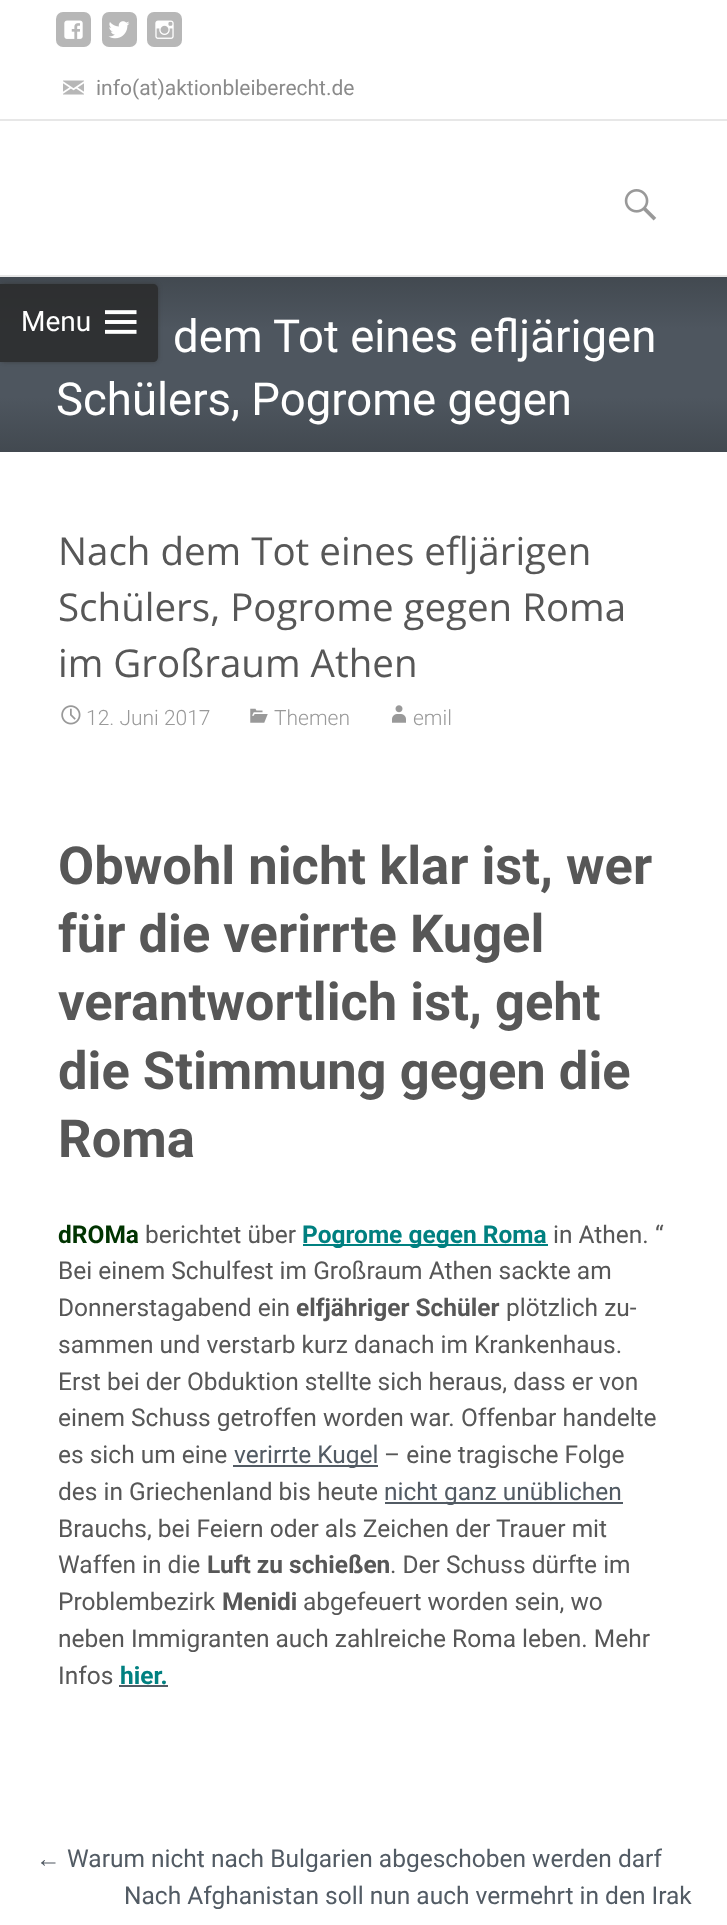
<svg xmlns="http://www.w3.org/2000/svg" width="727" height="1925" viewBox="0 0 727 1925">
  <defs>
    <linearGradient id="g1" gradientUnits="userSpaceOnUse" x1="364" y1="276" x2="364" y2="452"><stop offset="0" stop-color="rgb(66,73,80)"/><stop offset="0.3" stop-color="rgb(78,86,95)"/><stop offset="0.69" stop-color="rgb(78,86,95)"/><stop offset="1" stop-color="rgb(66,73,80)"/></linearGradient>
    <clipPath id="clip1"><path d="M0 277H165V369H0ZM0 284H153C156 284 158 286 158 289V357C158 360 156 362 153 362H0Z" clip-rule="evenodd"/></clipPath>
  </defs>
  <rect width="100%" height="100%" fill="rgb(255,255,255)"/>
  <rect x="0" y="119" width="727" height="2" fill="rgb(231,231,231)"/>
  <rect x="56" y="12" width="35" height="35" rx="7" fill="rgb(183,183,183)"/>
  <image x="64" y="20" width="19" height="19" href="pic1.png"/>
  <rect x="102" y="12" width="35" height="35" rx="7" fill="rgb(183,183,183)"/>
  <image x="108" y="21" width="22" height="18" href="pic2.png"/>
  <rect x="147" y="12" width="35" height="35" rx="7" fill="rgb(183,183,183)"/>
  <image x="155" y="20" width="19" height="19" href="pic3.png"/>
  <image x="63" y="80" width="21" height="15" href="pic4.png"/>
  <text x="96" y="95" font-family="Roboto" font-size="21" fill="rgb(139,139,139)">info(at)aktionbleiberecht.de</text>
  <rect x="0" y="275" width="727" height="2" fill="rgb(231,231,231)"/>
  <image x="624" y="189" width="33" height="32" href="pic5.png"/>
  <rect x="0" y="277" width="727" height="175" fill="url(#g1)"/>
  <g clip-path="url(#clip1)">
    <rect x="0" y="284" width="158" height="78" rx="5" fill="rgba(50,50,50,0.64)" filter="blur(2px)"/>
  </g>
  <path d="M0 284H153C156 284 158 286 158 289V357C158 360 156 362 153 362H0Z" fill="rgba(40,40,40,0.8)"/>
  <text x="21" y="331" font-family="Roboto" font-size="28" fill="rgb(255,255,255)">Menu</text>
  <image x="105" y="310" width="32" height="24" href="pic6.png"/>
  <g font-family="Roboto" font-size="45.5" fill="rgb(255,255,255)">
    <text x="173" y="352">dem Tot eines efljärigen</text>
    <text x="56" y="415">Schülers, Pogrome gegen</text>
  </g>
  <g font-family="Open Sans" font-size="38.5" fill="rgb(87,87,87)">
    <text>
      <tspan x="58" y="565">Nach dem Tot eines efljärigen</tspan>
      <tspan x="58" y="621">Schülers, Pogrome gegen Roma</tspan>
      <tspan x="58" y="677">im Großraum Athen</tspan>
    </text>
  </g>
  <image x="61" y="705" width="20" height="20" href="pic7.png"/>
  <text x="86" y="725" font-family="Roboto" font-size="21" font-weight="300" fill="rgb(153,153,153)">12. Juni 2017</text>
  <image x="250" y="708" width="18" height="15" href="pic8.png"/>
  <text x="274" y="725" font-family="Roboto" font-size="21" font-weight="300" fill="rgb(153,153,153)">Themen</text>
  <image x="392" y="705" width="14" height="18" href="pic9.png"/>
  <text x="413" y="725" font-family="Roboto" font-size="21" font-weight="300" fill="rgb(153,153,153)">emil</text>
  <g font-family="Roboto" font-size="52.5" font-weight="bold" fill="rgb(87,87,87)">
    <text>
      <tspan x="58" y="884">Obwohl nicht klar ist, wer</tspan>
      <tspan x="58" y="952">für die verirrte Kugel</tspan>
      <tspan x="58" y="1020">verantwortlich ist, geht</tspan>
      <tspan x="58" y="1089">die Stimmung gegen die</tspan>
      <tspan x="58" y="1157">Roma</tspan>
    </text>
  </g>
  <text x="58" y="1243" font-family="Roboto" font-size="24.5" font-weight="bold" fill="rgb(0,51,0)">dROMa</text>
  <text x="145" y="1243" font-family="Roboto" font-size="24.5" fill="rgb(87,87,87)">berichtet über</text>
  <rect x="303" y="1244" width="245" height="2" fill="rgb(0,128,128)"/>
  <text x="302" y="1243" font-family="Roboto" font-size="24.5" font-weight="bold" fill="rgb(0,128,128)">Pogrome gegen Roma</text>
  <g font-family="Roboto" font-size="24.5" fill="rgb(87,87,87)">
    <text x="553" y="1243">in Athen. “</text>
    <text>
      <tspan x="58" y="1279">Bei einem Schulfest im Großraum Athen sackte am</tspan>
      <tspan x="58" y="1316">Donnerstagabend ein</tspan>
    </text>
  </g>
  <text x="296" y="1316" font-family="Roboto" font-size="24.5" font-weight="bold" fill="rgb(87,87,87)">elfjähriger Schüler</text>
  <g font-family="Roboto" font-size="24.5" fill="rgb(87,87,87)">
    <text x="506" y="1316">plötzlich zu-</text>
    <text>
      <tspan x="58" y="1353">sammen und verstarb kurz danach im Krankenhaus.</tspan>
      <tspan x="58" y="1390">Erst bei der Obduktion stellte sich heraus, dass er von</tspan>
      <tspan x="58" y="1426">einem Schuss getroffen worden war. Offenbar handelte</tspan>
      <tspan x="58" y="1463">es sich um eine</tspan>
    </text>
  </g>
  <rect x="233" y="1465" width="145" height="2" fill="rgb(82,91,100)"/>
  <text x="234" y="1463" font-family="Roboto" font-size="24.5" fill="rgb(82,91,100)">verirrte Kugel</text>
  <g font-family="Roboto" font-size="24.5" fill="rgb(87,87,87)">
    <text x="384" y="1463">– eine tragische Folge</text>
    <text x="58" y="1500">des in Griechenland bis heute</text>
  </g>
  <rect x="385" y="1502" width="238" height="2" fill="rgb(82,91,100)"/>
  <text x="384" y="1500" font-family="Roboto" font-size="24.5" fill="rgb(82,91,100)">nicht ganz unüblichen</text>
  <g font-family="Roboto" font-size="24.5" fill="rgb(87,87,87)">
    <text>
      <tspan x="58" y="1537">Brauchs, bei Feiern oder als Zeichen der Trauer mit</tspan>
      <tspan x="58" y="1573">Waffen in die</tspan>
    </text>
  </g>
  <text x="207" y="1573" font-family="Roboto" font-size="24.5" font-weight="bold" fill="rgb(87,87,87)">Luft zu schießen</text>
  <g font-family="Roboto" font-size="24.5" fill="rgb(87,87,87)">
    <text x="390" y="1573">. Der Schuss dürfte im</text>
    <text x="58" y="1610">Problembezirk</text>
  </g>
  <text x="222" y="1610" font-family="Roboto" font-size="24.5" font-weight="bold" fill="rgb(87,87,87)">Menidi</text>
  <g font-family="Roboto" font-size="24.5" fill="rgb(87,87,87)">
    <text x="303" y="1610">abgefeuert worden sein, wo</text>
    <text>
      <tspan x="58" y="1647">neben Immigranten auch zahlreiche Roma leben. Mehr</tspan>
      <tspan x="58" y="1684">Infos</tspan>
    </text>
  </g>
  <text x="120" y="1684" font-family="Roboto" font-size="24.5" font-weight="bold" fill="rgb(0,128,128)">hier.</text>
  <rect x="119" y="1685" width="49" height="2" fill="rgb(82,91,100)"/>
  <text x="36" y="1867" font-family="Liberation Sans" font-size="24.5" fill="rgb(82,91,100)">←</text>
  <g font-family="Roboto" font-size="24.5" fill="rgb(82,91,100)">
    <text x="67" y="1867">Warum nicht nach Bulgarien abgeschoben werden darf</text>
    <text x="124" y="1904">Nach Afghanistan soll nun auch vermehrt in den Irak</text>
  </g>
</svg>
